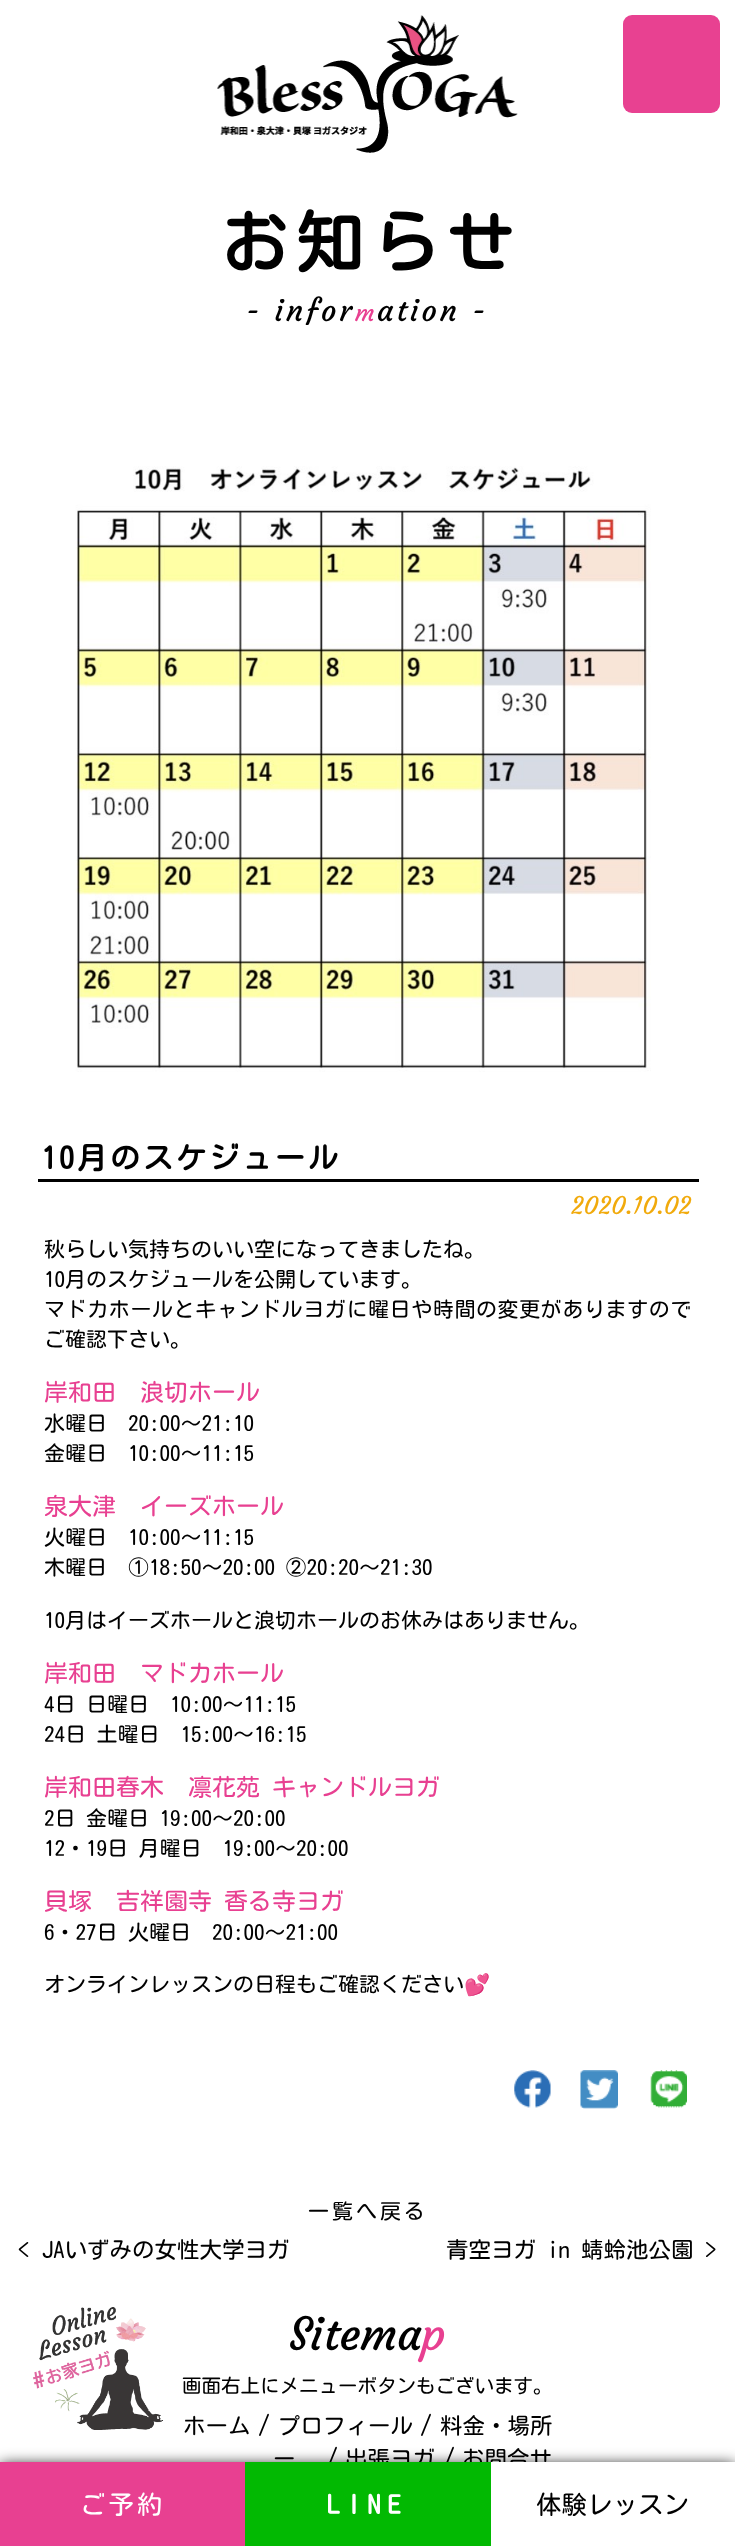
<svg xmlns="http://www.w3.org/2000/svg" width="735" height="2546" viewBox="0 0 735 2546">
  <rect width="100%" height="100%" fill="rgb(255,255,255)"/>
  <text x="221" y="268" font-family="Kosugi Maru" font-size="67.5" font-weight="bold" letter-spacing="7.5" fill="rgb(0,0,0)">お知らせ</text>
  <text x="246" y="321" font-family="Courgette" font-size="30" letter-spacing="3" fill="rgb(0,0,0)">- infor</text>
  <text x="355" y="321" font-family="Courgette" font-size="24" letter-spacing="3" fill="rgb(232,64,145)">m</text>
  <text x="377" y="321" font-family="Courgette" font-size="30" letter-spacing="3" fill="rgb(0,0,0)">ation -</text>
  <image x="75" y="466" width="576" height="606" href="pic1.png"/>
  <rect x="38" y="1179" width="661" height="3" fill="rgb(0,0,0)"/>
  <text x="41" y="1169" font-family="Kosugi Maru" font-size="30" font-weight="bold" letter-spacing="3" fill="rgb(0,0,0)">10月のスケジュール</text>
  <text x="571" y="1214" font-family="Courgette" font-size="24" fill="rgb(241,170,12)">2020.10.02</text>
  <g font-family="Kosugi Maru" font-size="21" fill="rgb(0,0,0)">
    <text>
      <tspan x="44" y="1257">秋らしい気持ちのいい空になってきましたね。</tspan>
      <tspan x="44" y="1287">10月のスケジュールを公開しています。</tspan>
    </text>
  </g>
  <text x="44" y="1317" font-family="Kosugi Maru" font-size="21" letter-spacing="0.6" fill="rgb(0,0,0)">マドカホールとキャンドルヨガに曜日や時間の変更がありますので</text>
  <text x="44" y="1347" font-family="Kosugi Maru" font-size="21" fill="rgb(0,0,0)">ご確認下さい。</text>
  <text x="44" y="1401" font-family="Kosugi Maru" font-size="24" fill="rgb(232,64,145)">岸和田　浪切ホール</text>
  <g font-family="Kosugi Maru" font-size="21" fill="rgb(0,0,0)">
    <text>
      <tspan x="44" y="1431">水曜日　20:00〜21:10</tspan>
      <tspan x="44" y="1461">金曜日　10:00〜11:15</tspan>
    </text>
  </g>
  <text x="44" y="1515" font-family="Kosugi Maru" font-size="24" fill="rgb(232,64,145)">泉大津　イーズホール</text>
  <g font-family="Kosugi Maru" font-size="21" fill="rgb(0,0,0)">
    <text>
      <tspan x="44" y="1545">火曜日　10:00〜11:15</tspan>
      <tspan x="44" y="1575">木曜日　①18:50〜20:00 ②20:20〜21:30</tspan>
    </text>
    <text x="44" y="1628">10月はイーズホールと浪切ホールのお休みはありません。</text>
  </g>
  <text x="44" y="1682" font-family="Kosugi Maru" font-size="24" fill="rgb(232,64,145)">岸和田　マドカホール</text>
  <g font-family="Kosugi Maru" font-size="21" fill="rgb(0,0,0)">
    <text>
      <tspan x="44" y="1712">4日 日曜日　10:00〜11:15</tspan>
      <tspan x="44" y="1742">24日 土曜日　15:00〜16:15</tspan>
    </text>
  </g>
  <text x="44" y="1796" font-family="Kosugi Maru" font-size="24" fill="rgb(232,64,145)">岸和田春木　凛花苑 キャンドルヨガ</text>
  <g font-family="Kosugi Maru" font-size="21" fill="rgb(0,0,0)">
    <text>
      <tspan x="44" y="1826">2日 金曜日 19:00〜20:00</tspan>
      <tspan x="44" y="1856">12・19日 月曜日　19:00〜20:00</tspan>
    </text>
  </g>
  <text x="44" y="1910" font-family="Kosugi Maru" font-size="24" fill="rgb(232,64,145)">貝塚　吉祥園寺 香る寺ヨガ</text>
  <g font-family="Kosugi Maru" font-size="21" fill="rgb(0,0,0)">
    <text x="44" y="1940">6・27日 火曜日　20:00〜21:00</text>
    <text x="44" y="1992">オンラインレッスンの日程もご確認ください</text>
  </g>
  <text x="464" y="1992" font-family="Noto Color Emoji" font-size="21" fill="rgb(0,0,0)">💕</text>
  <image x="514" y="2070" width="37" height="38" href="pic2.png"/>
  <image x="580" y="2070" width="38" height="39" href="pic3.png"/>
  <image x="650" y="2070" width="37" height="38" href="pic4.png"/>
  <text x="308" y="2219" font-family="Kosugi Maru" font-size="21" letter-spacing="3" fill="rgb(0,0,0)">一覧へ戻る</text>
  <g font-family="Kosugi Maru" font-size="22.5" fill="rgb(0,0,0)">
    <text x="18" y="2258">&lt;</text>
    <text x="42" y="2258">JAいずみの女性大学ヨガ</text>
    <text x="446" y="2258">青空ヨガ in 蜻蛉池公園</text>
    <text x="705" y="2258">&gt;</text>
  </g>
  <text x="289" y="2350" font-family="Courgette" font-size="45" fill="rgb(0,0,0)">Sitema</text>
  <text x="421" y="2350" font-family="Courgette" font-size="45" fill="rgb(232,64,145)">p</text>
  <text x="182" y="2393" font-family="Kosugi Maru" font-size="19.5" fill="rgb(0,0,0)">画面右上にメニューボタンもございます。</text>
  <text x="183" y="2434" font-family="Kosugi Maru" font-size="22.5" fill="rgb(0,0,0)">ホーム</text>
  <text x="258" y="2434" font-family="Kosugi Maru" font-size="24" fill="rgb(0,0,0)">/</text>
  <text x="278" y="2434" font-family="Kosugi Maru" font-size="22.5" fill="rgb(0,0,0)">プロフィール</text>
  <text x="420" y="2434" font-family="Kosugi Maru" font-size="24" fill="rgb(0,0,0)">/</text>
  <g font-family="Kosugi Maru" font-size="22.5" fill="rgb(0,0,0)">
    <text x="440" y="2434">料金・場所</text>
    <text x="273" y="2467">ー</text>
  </g>
  <text x="326" y="2467" font-family="Kosugi Maru" font-size="24" fill="rgb(0,0,0)">/</text>
  <text x="345" y="2467" font-family="Kosugi Maru" font-size="22.5" fill="rgb(0,0,0)">出張ヨガ</text>
  <text x="443" y="2467" font-family="Kosugi Maru" font-size="24" fill="rgb(0,0,0)">/</text>
  <text x="462" y="2467" font-family="Kosugi Maru" font-size="22.5" fill="rgb(0,0,0)">お問合せ</text>
  <image x="217" y="15" width="301" height="138" href="pic5.png"/>
  <rect x="623" y="15" width="97" height="98" rx="9" fill="rgb(232,65,145)"/>
  <image x="33" y="2307" width="131" height="123" href="pic6.png"/>
  <rect x="0" y="2465" width="735" height="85" fill="rgb(0,0,0)" filter="blur(7.5px)"/>
  <rect x="0" y="2462" width="245" height="84" fill="rgb(232,64,145)"/>
  <text x="80" y="2514" font-family="Kosugi Maru" font-size="25.5" letter-spacing="3" fill="rgb(255,255,255)">ご予約</text>
  <rect x="245" y="2462" width="246" height="84" fill="rgb(2,185,2)"/>
  <text x="327" y="2514" font-family="Kosugi Maru" font-size="25.5" font-weight="bold" letter-spacing="7.5" fill="rgb(255,255,255)">LINE</text>
  <rect x="491" y="2462" width="244" height="84" fill="rgb(255,255,255)"/>
  <text x="536" y="2514" font-family="Kosugi Maru" font-size="25.5" fill="rgb(0,0,0)">体験レッスン</text>
</svg>
